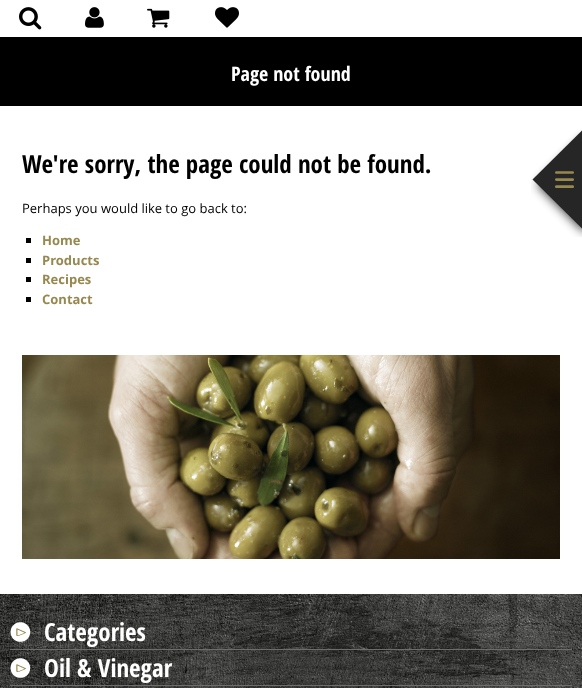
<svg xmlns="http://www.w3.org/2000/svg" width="582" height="688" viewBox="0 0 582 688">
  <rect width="100%" height="100%" fill="rgb(255,255,255)"/>
  <image x="19" y="7" width="23" height="23" href="pic1.png"/>
  <image x="85" y="7" width="19" height="21" href="pic2.png"/>
  <image x="147" y="8" width="23" height="20" href="pic3.png"/>
  <image x="215" y="7" width="24" height="21" href="pic4.png"/>
  <image x="531" y="130" width="51" height="107" href="pic5.png"/>
  <rect x="0" y="37" width="582" height="69" fill="rgb(0,0,0)"/>
  <text x="231" y="81" font-family="Open Sans Condensed" font-size="20" font-weight="bold" fill="rgb(255,255,255)">Page not found</text>
  <text x="22" y="173" font-family="Open Sans Condensed" font-size="25" font-weight="bold" fill="rgb(0,0,0)">We're sorry, the page could not be found.</text>
  <text x="22" y="213" font-family="Open Sans" font-size="13" fill="rgb(0,0,0)">Perhaps you would like to go back to:</text>
  <rect x="26" y="238" width="5" height="5" fill="rgb(0,0,0)"/>
  <text x="42" y="245" font-family="Open Sans" font-size="13" font-weight="bold" fill="rgb(151,136,80)">Home</text>
  <rect x="26" y="258" width="5" height="5" fill="rgb(0,0,0)"/>
  <text x="42" y="265" font-family="Open Sans" font-size="13" font-weight="bold" fill="rgb(151,136,80)">Products</text>
  <rect x="26" y="277" width="5" height="5" fill="rgb(0,0,0)"/>
  <text x="42" y="284" font-family="Open Sans" font-size="13" font-weight="bold" fill="rgb(151,136,80)">Recipes</text>
  <rect x="26" y="297" width="5" height="5" fill="rgb(0,0,0)"/>
  <text x="42" y="304" font-family="Open Sans" font-size="13" font-weight="bold" fill="rgb(151,136,80)">Contact</text>
  <image x="22" y="355" width="538" height="204" href="pic6.png"/>
  <image x="0" y="594" width="582" height="94" href="pic7.png"/>
  <rect x="10" y="649" width="562" height="1" fill="rgb(109,109,110)"/>
  <image x="10" y="622" width="21" height="20" href="pic8.png"/>
  <text x="44" y="641" font-family="Open Sans Condensed" font-size="25" font-weight="bold" fill="rgb(255,255,255)">Categories</text>
  <rect x="10" y="685" width="562" height="1" fill="rgb(109,109,110)"/>
  <image x="10" y="658" width="21" height="20" href="pic9.png"/>
  <text x="44" y="677" font-family="Open Sans Condensed" font-size="25" font-weight="bold" fill="rgb(255,255,255)">Oil &amp; Vinegar</text>
</svg>
